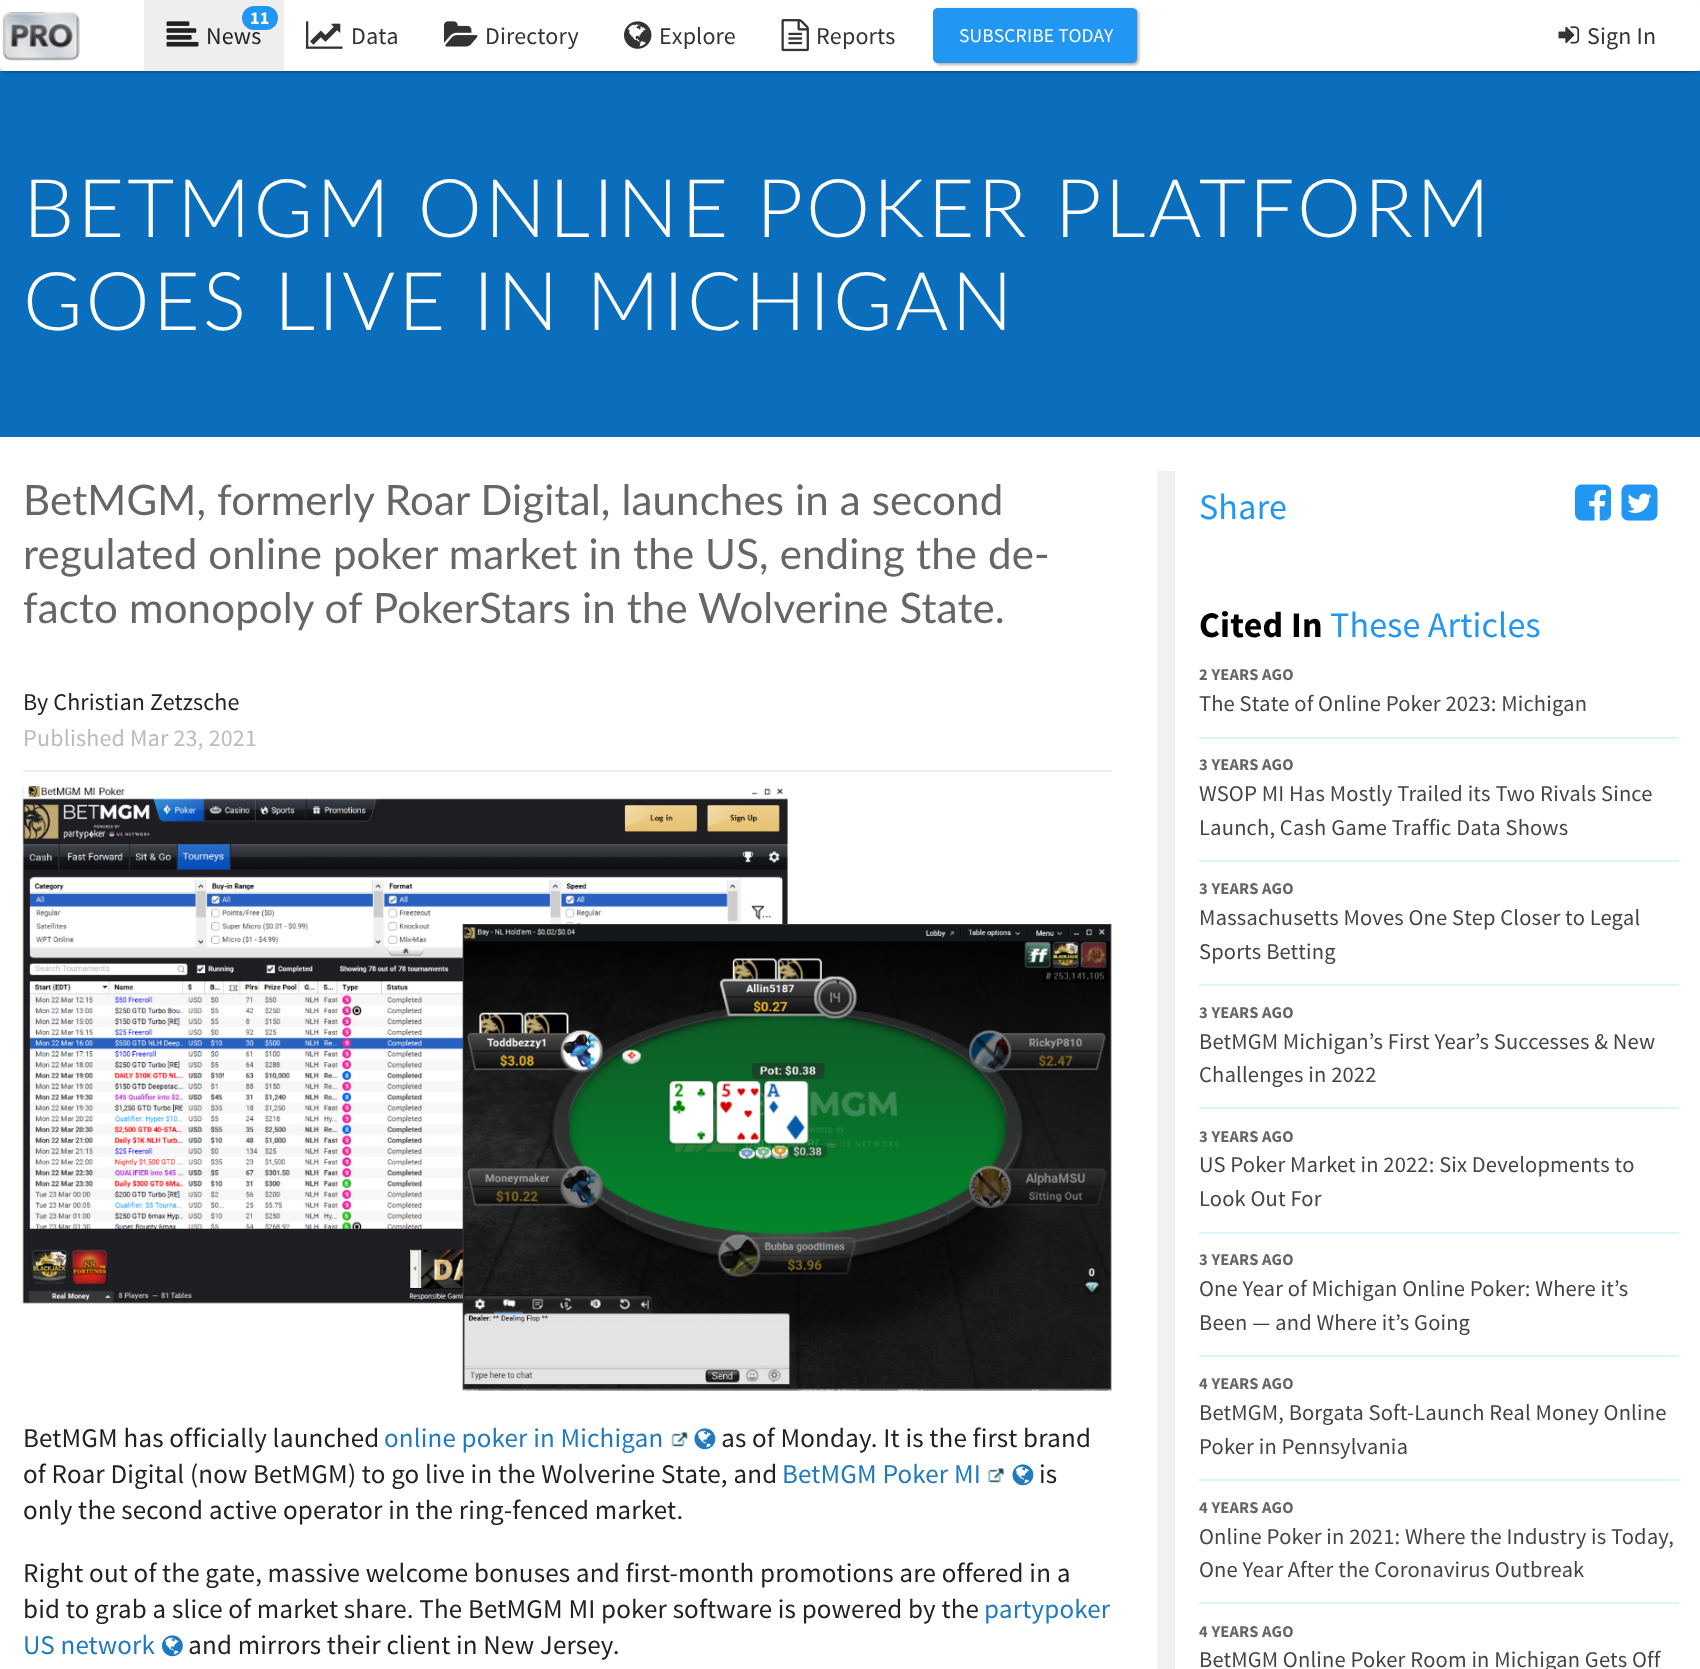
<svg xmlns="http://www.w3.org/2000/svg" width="1700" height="1669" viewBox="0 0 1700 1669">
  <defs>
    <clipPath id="clip1"><rect x="933" y="8" width="204" height="55" rx="5"/></clipPath>
    <radialGradient id="g1" gradientUnits="userSpaceOnUse" cx="1036" cy="36" r="204"><stop offset="0.8" stop-color="rgb(33,150,243)"/><stop offset="0.81" stop-color="rgb(13,135,233)"/></radialGradient>
    <clipPath id="clip2"><rect x="1199" y="605" width="480" height="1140"/></clipPath>
  </defs>
  <rect width="100%" height="100%" fill="rgb(255,255,255)"/>
  <rect x="0" y="71" width="1700" height="366" fill="rgb(10,110,189)"/>
  <rect x="0" y="2" width="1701" height="70" rx="5" fill="rgba(0,0,0,0.3)" filter="blur(1.5px)"/>
  <rect x="0" y="0" width="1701" height="71" rx="5" fill="rgb(255,255,255)"/>
  <image x="2" y="12" width="78" height="49" href="pic1.png"/>
  <rect x="144" y="0" width="140" height="71" fill="rgb(238,238,238)"/>
  <text x="206" y="44" font-family="Source Sans Pro" font-size="24" letter-spacing="0.15" fill="rgb(34,34,34)">News</text>
  <rect x="242" y="6" width="36" height="24" rx="12" fill="rgb(33,150,243)"/>
  <text x="250" y="24" font-family="Source Sans Pro" font-size="18" font-weight="bold" letter-spacing="0.15" fill="rgb(255,255,255)">11</text>
  <image x="166" y="21" width="33" height="26" href="pic2.png"/>
  <image x="306" y="21" width="37" height="28" href="pic3.png"/>
  <text x="351" y="44" font-family="Source Sans Pro" font-size="24" letter-spacing="0.15" fill="rgb(51,51,51)">Data</text>
  <image x="444" y="21" width="34" height="26" href="pic4.png"/>
  <text x="485" y="44" font-family="Source Sans Pro" font-size="24" letter-spacing="0.15" fill="rgb(51,51,51)">Directory</text>
  <image x="624" y="21" width="28" height="28" href="pic5.png"/>
  <text x="659" y="44" font-family="Source Sans Pro" font-size="24" letter-spacing="0.15" fill="rgb(51,51,51)">Explore</text>
  <image x="781" y="19" width="28" height="33" href="pic6.png"/>
  <text x="816" y="44" font-family="Source Sans Pro" font-size="24" letter-spacing="0.15" fill="rgb(51,51,51)">Reports</text>
  <rect x="935" y="9" width="204" height="56" rx="5" fill="rgba(0,0,0,0.3)" filter="blur(1.5px)"/>
  <rect x="933" y="8" width="204" height="55" rx="5" fill="rgb(33,150,243)"/>
  <g clip-path="url(#clip1)">
    <path d="M933 9H1137V58C1137 61 1135 63 1132 63H938C935 63 933 61 933 58Z" fill="url(#g1)"/>
  </g>
  <text x="959" y="42" font-family="Source Sans Pro" font-size="19.5" letter-spacing="0.15" fill="rgb(255,255,255)">SUBSCRIBE TODAY</text>
  <image x="1558" y="26" width="22" height="18" href="pic7.png"/>
  <text x="1587" y="44" font-family="Source Sans Pro" font-size="24" letter-spacing="0.15" fill="rgb(51,51,51)">Sign In</text>
  <g font-family="Lato" font-size="81" font-weight="300" letter-spacing="3" fill="rgb(255,255,255)">
    <text>
      <tspan x="23" y="237">BETMGM ONLINE POKER PLATFORM</tspan>
      <tspan x="23" y="330">GOES LIVE IN MICHIGAN</tspan>
    </text>
  </g>
  <g font-family="Lato" font-size="42" letter-spacing="0.15" fill="rgb(102,102,102)">
    <text>
      <tspan x="23" y="515">BetMGM, formerly Roar Digital, launches in a second</tspan>
      <tspan x="23" y="569">regulated online poker market in the US, ending the de-</tspan>
      <tspan x="23" y="623">facto monopoly of PokerStars in the Wolverine State.</tspan>
    </text>
  </g>
  <rect x="23" y="770" width="1089" height="2" fill="rgb(238,238,238)"/>
  <text x="23" y="710" font-family="Source Sans Pro" font-size="24" letter-spacing="0.15" fill="rgb(34,34,34)">By Christian Zetzsche</text>
  <text x="23" y="746" font-family="Source Sans Pro" font-size="24" letter-spacing="0.15" fill="rgb(187,187,187)">Published Mar 23, 2021</text>
  <image x="22" y="786" width="1090" height="605" href="pic8.png"/>
  <text x="23" y="1447" font-family="Source Sans Pro" font-size="27" letter-spacing="0.15" fill="rgb(34,34,34)">BetMGM has officially launched</text>
  <text x="384" y="1447" font-family="Source Sans Pro" font-size="27" letter-spacing="0.15" fill="rgb(31,122,191)">online poker in Michigan</text>
  <image x="670" y="1432" width="19" height="15" href="pic9.png"/>
  <image x="694" y="1428" width="22" height="22" href="pic10.png"/>
  <g font-family="Source Sans Pro" font-size="27" letter-spacing="0.15" fill="rgb(34,34,34)">
    <text x="721" y="1447">as of Monday. It is the first brand</text>
    <text x="23" y="1483">of Roar Digital (now BetMGM) to go live in the Wolverine State, and</text>
  </g>
  <text x="782" y="1483" font-family="Source Sans Pro" font-size="27" letter-spacing="0.15" fill="rgb(31,122,191)">BetMGM Poker MI</text>
  <image x="987" y="1468" width="18" height="15" href="pic11.png"/>
  <image x="1012" y="1464" width="22" height="22" href="pic10.png"/>
  <g font-family="Source Sans Pro" font-size="27" letter-spacing="0.15" fill="rgb(34,34,34)">
    <text x="1039" y="1483">is</text>
    <text x="23" y="1519">only the second active operator in the ring-fenced market.</text>
    <text>
      <tspan x="23" y="1582">Right out of the gate, massive welcome bonuses and first-month promotions are offered in a</tspan>
      <tspan x="23" y="1618">bid to grab a slice of market share. The BetMGM MI poker software is powered by the</tspan>
    </text>
  </g>
  <g font-family="Source Sans Pro" font-size="27" letter-spacing="0.15" fill="rgb(31,122,191)">
    <text x="984" y="1618">partypoker</text>
    <text x="23" y="1654">US network</text>
  </g>
  <image x="162" y="1635" width="21" height="22" href="pic12.png"/>
  <text x="188" y="1654" font-family="Source Sans Pro" font-size="27" letter-spacing="0.15" fill="rgb(34,34,34)">and mirrors their client in New Jersey.</text>
  <rect x="1157" y="471" width="18" height="1198" fill="rgb(241,241,241)"/>
  <text x="1199" y="519" font-family="Source Sans Pro" font-size="36" letter-spacing="0.15" fill="rgb(33,150,243)">Share</text>
  <image x="1575" y="484" width="36" height="37" href="pic13.png"/>
  <image x="1621" y="484" width="37" height="37" href="pic14.png"/>
  <text x="1199" y="637" font-family="Source Sans Pro" font-size="36" font-weight="bold" letter-spacing="0.15" fill="rgb(0,0,0)">Cited In</text>
  <text x="1330" y="637" font-family="Source Sans Pro" font-size="36" letter-spacing="0.15" fill="rgb(33,150,243)">These Articles</text>
  <rect x="1199" y="737" width="480" height="2" fill="rgb(220,242,252)"/>
  <text x="1199" y="680" font-family="Source Sans Pro" font-size="16.5" font-weight="bold" letter-spacing="0.15" fill="rgb(102,102,102)">2 YEARS AGO</text>
  <text x="1199" y="711" font-family="Source Sans Pro" font-size="22.5" letter-spacing="0.15" fill="rgb(68,68,68)">The State of Online Poker 2023: Michigan</text>
  <rect x="1199" y="860" width="480" height="2" fill="rgb(220,242,252)"/>
  <text x="1199" y="770" font-family="Source Sans Pro" font-size="16.5" font-weight="bold" letter-spacing="0.15" fill="rgb(102,102,102)">3 YEARS AGO</text>
  <g font-family="Source Sans Pro" font-size="22.5" letter-spacing="0.15" fill="rgb(68,68,68)">
    <text>
      <tspan x="1199" y="801">WSOP MI Has Mostly Trailed its Two Rivals Since</tspan>
      <tspan x="1199" y="835">Launch, Cash Game Traffic Data Shows</tspan>
    </text>
  </g>
  <rect x="1199" y="984" width="480" height="2" fill="rgb(220,242,252)"/>
  <text x="1199" y="894" font-family="Source Sans Pro" font-size="16.5" font-weight="bold" letter-spacing="0.15" fill="rgb(102,102,102)">3 YEARS AGO</text>
  <g font-family="Source Sans Pro" font-size="22.5" letter-spacing="0.15" fill="rgb(68,68,68)">
    <text>
      <tspan x="1199" y="925">Massachusetts Moves One Step Closer to Legal</tspan>
      <tspan x="1199" y="959">Sports Betting</tspan>
    </text>
  </g>
  <rect x="1199" y="1107" width="480" height="2" fill="rgb(220,242,252)"/>
  <text x="1199" y="1018" font-family="Source Sans Pro" font-size="16.5" font-weight="bold" letter-spacing="0.15" fill="rgb(102,102,102)">3 YEARS AGO</text>
  <g font-family="Source Sans Pro" font-size="22.5" letter-spacing="0.15" fill="rgb(68,68,68)">
    <text>
      <tspan x="1199" y="1049">BetMGM Michigan’s First Year’s Successes &amp; New</tspan>
      <tspan x="1199" y="1082">Challenges in 2022</tspan>
    </text>
  </g>
  <rect x="1199" y="1232" width="480" height="2" fill="rgb(220,242,252)"/>
  <text x="1199" y="1142" font-family="Source Sans Pro" font-size="16.5" font-weight="bold" letter-spacing="0.15" fill="rgb(102,102,102)">3 YEARS AGO</text>
  <g font-family="Source Sans Pro" font-size="22.5" letter-spacing="0.15" fill="rgb(68,68,68)">
    <text>
      <tspan x="1199" y="1172">US Poker Market in 2022: Six Developments to</tspan>
      <tspan x="1199" y="1206">Look Out For</tspan>
    </text>
  </g>
  <rect x="1199" y="1355" width="480" height="2" fill="rgb(220,242,252)"/>
  <text x="1199" y="1265" font-family="Source Sans Pro" font-size="16.5" font-weight="bold" letter-spacing="0.15" fill="rgb(102,102,102)">3 YEARS AGO</text>
  <g font-family="Source Sans Pro" font-size="22.5" letter-spacing="0.15" fill="rgb(68,68,68)">
    <text>
      <tspan x="1199" y="1296">One Year of Michigan Online Poker: Where it’s</tspan>
      <tspan x="1199" y="1330">Been — and Where it’s Going</tspan>
    </text>
  </g>
  <rect x="1199" y="1479" width="480" height="2" fill="rgb(220,242,252)"/>
  <g clip-path="url(#clip2)">
    <text x="1199" y="1389" font-family="Source Sans Pro" font-size="16.5" font-weight="bold" letter-spacing="0.15" fill="rgb(102,102,102)">4 YEARS AGO</text>
  </g>
  <g font-family="Source Sans Pro" font-size="22.5" letter-spacing="0.15" fill="rgb(68,68,68)">
    <text>
      <tspan x="1199" y="1420">BetMGM, Borgata Soft-Launch Real Money Online</tspan>
      <tspan x="1199" y="1454">Poker in Pennsylvania</tspan>
    </text>
  </g>
  <rect x="1199" y="1602" width="480" height="2" fill="rgb(220,242,252)"/>
  <g clip-path="url(#clip2)">
    <text x="1199" y="1513" font-family="Source Sans Pro" font-size="16.5" font-weight="bold" letter-spacing="0.15" fill="rgb(102,102,102)">4 YEARS AGO</text>
  </g>
  <g font-family="Source Sans Pro" font-size="22.5" letter-spacing="0.15" fill="rgb(68,68,68)">
    <text>
      <tspan x="1199" y="1544">Online Poker in 2021: Where the Industry is Today,</tspan>
      <tspan x="1199" y="1577">One Year After the Coronavirus Outbreak</tspan>
    </text>
  </g>
  <g clip-path="url(#clip2)">
    <text x="1199" y="1637" font-family="Source Sans Pro" font-size="16.5" font-weight="bold" letter-spacing="0.15" fill="rgb(102,102,102)">4 YEARS AGO</text>
  </g>
  <text x="1199" y="1667" font-family="Source Sans Pro" font-size="22.5" letter-spacing="0.15" fill="rgb(68,68,68)">BetMGM Online Poker Room in Michigan Gets Off</text>
</svg>
